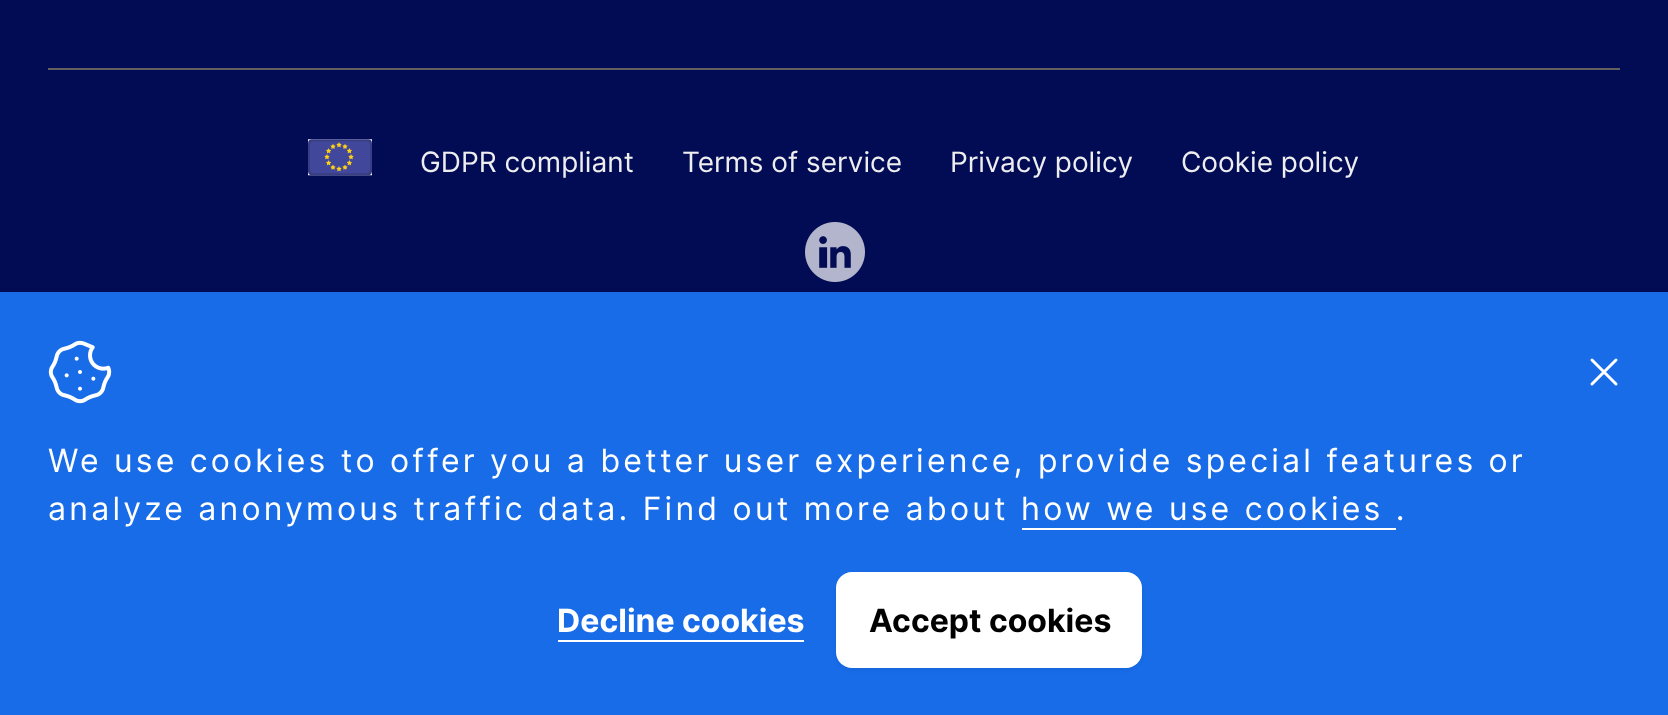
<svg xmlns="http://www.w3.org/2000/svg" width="1668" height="715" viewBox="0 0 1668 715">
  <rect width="100%" height="100%" fill="rgb(2,12,85)"/>
  <rect x="48" y="68" width="1572" height="2" fill="rgb(97,97,97)"/>
  <image x="308" y="139" width="64" height="37" href="pic1.png"/>
  <g font-family="Inter" font-size="28" fill="rgb(238,238,238)">
    <text x="420" y="172">GDPR compliant</text>
    <text x="682" y="172">Terms of service</text>
    <text x="950" y="172">Privacy policy</text>
    <text x="1181" y="172">Cookie policy</text>
  </g>
  <image x="805" y="222" width="60" height="60" href="pic2.png"/>
  <rect x="0" y="292" width="1668" height="423" fill="rgb(24,108,232)"/>
  <path d="M1592 384L1616 360M1592 360L1616 384" fill="none" stroke="rgb(255,255,255)" stroke-width="3" stroke-linecap="round" stroke-linejoin="round"/>
  <image x="48" y="340" width="64" height="64" href="pic3.png"/>
  <g font-family="Inter" font-size="32" letter-spacing="3.2" fill="rgb(255,255,255)">
    <text>
      <tspan x="48" y="472">We use cookies to offer you a better user experience, provide special features or</tspan>
      <tspan x="48" y="520">analyze anonymous traffic data. Find out more about how we use cookies .</tspan>
    </text>
  </g>
  <rect x="1022" y="528" width="374" height="2" fill="rgb(255,255,255)"/>
  <text x="557" y="632" font-family="Inter" font-size="32" font-weight="bold" fill="rgb(255,255,255)">Decline cookies</text>
  <rect x="558" y="640" width="246" height="2" fill="rgb(255,255,255)"/>
  <rect x="836" y="574" width="306" height="96" rx="16" fill="rgba(0,0,0,0.05)" filter="blur(2px)"/>
  <rect x="836" y="572" width="306" height="96" rx="16" fill="rgb(255,255,255)"/>
  <text x="869" y="632" font-family="Inter" font-size="32" font-weight="bold" fill="rgb(0,0,0)">Accept cookies</text>
</svg>
